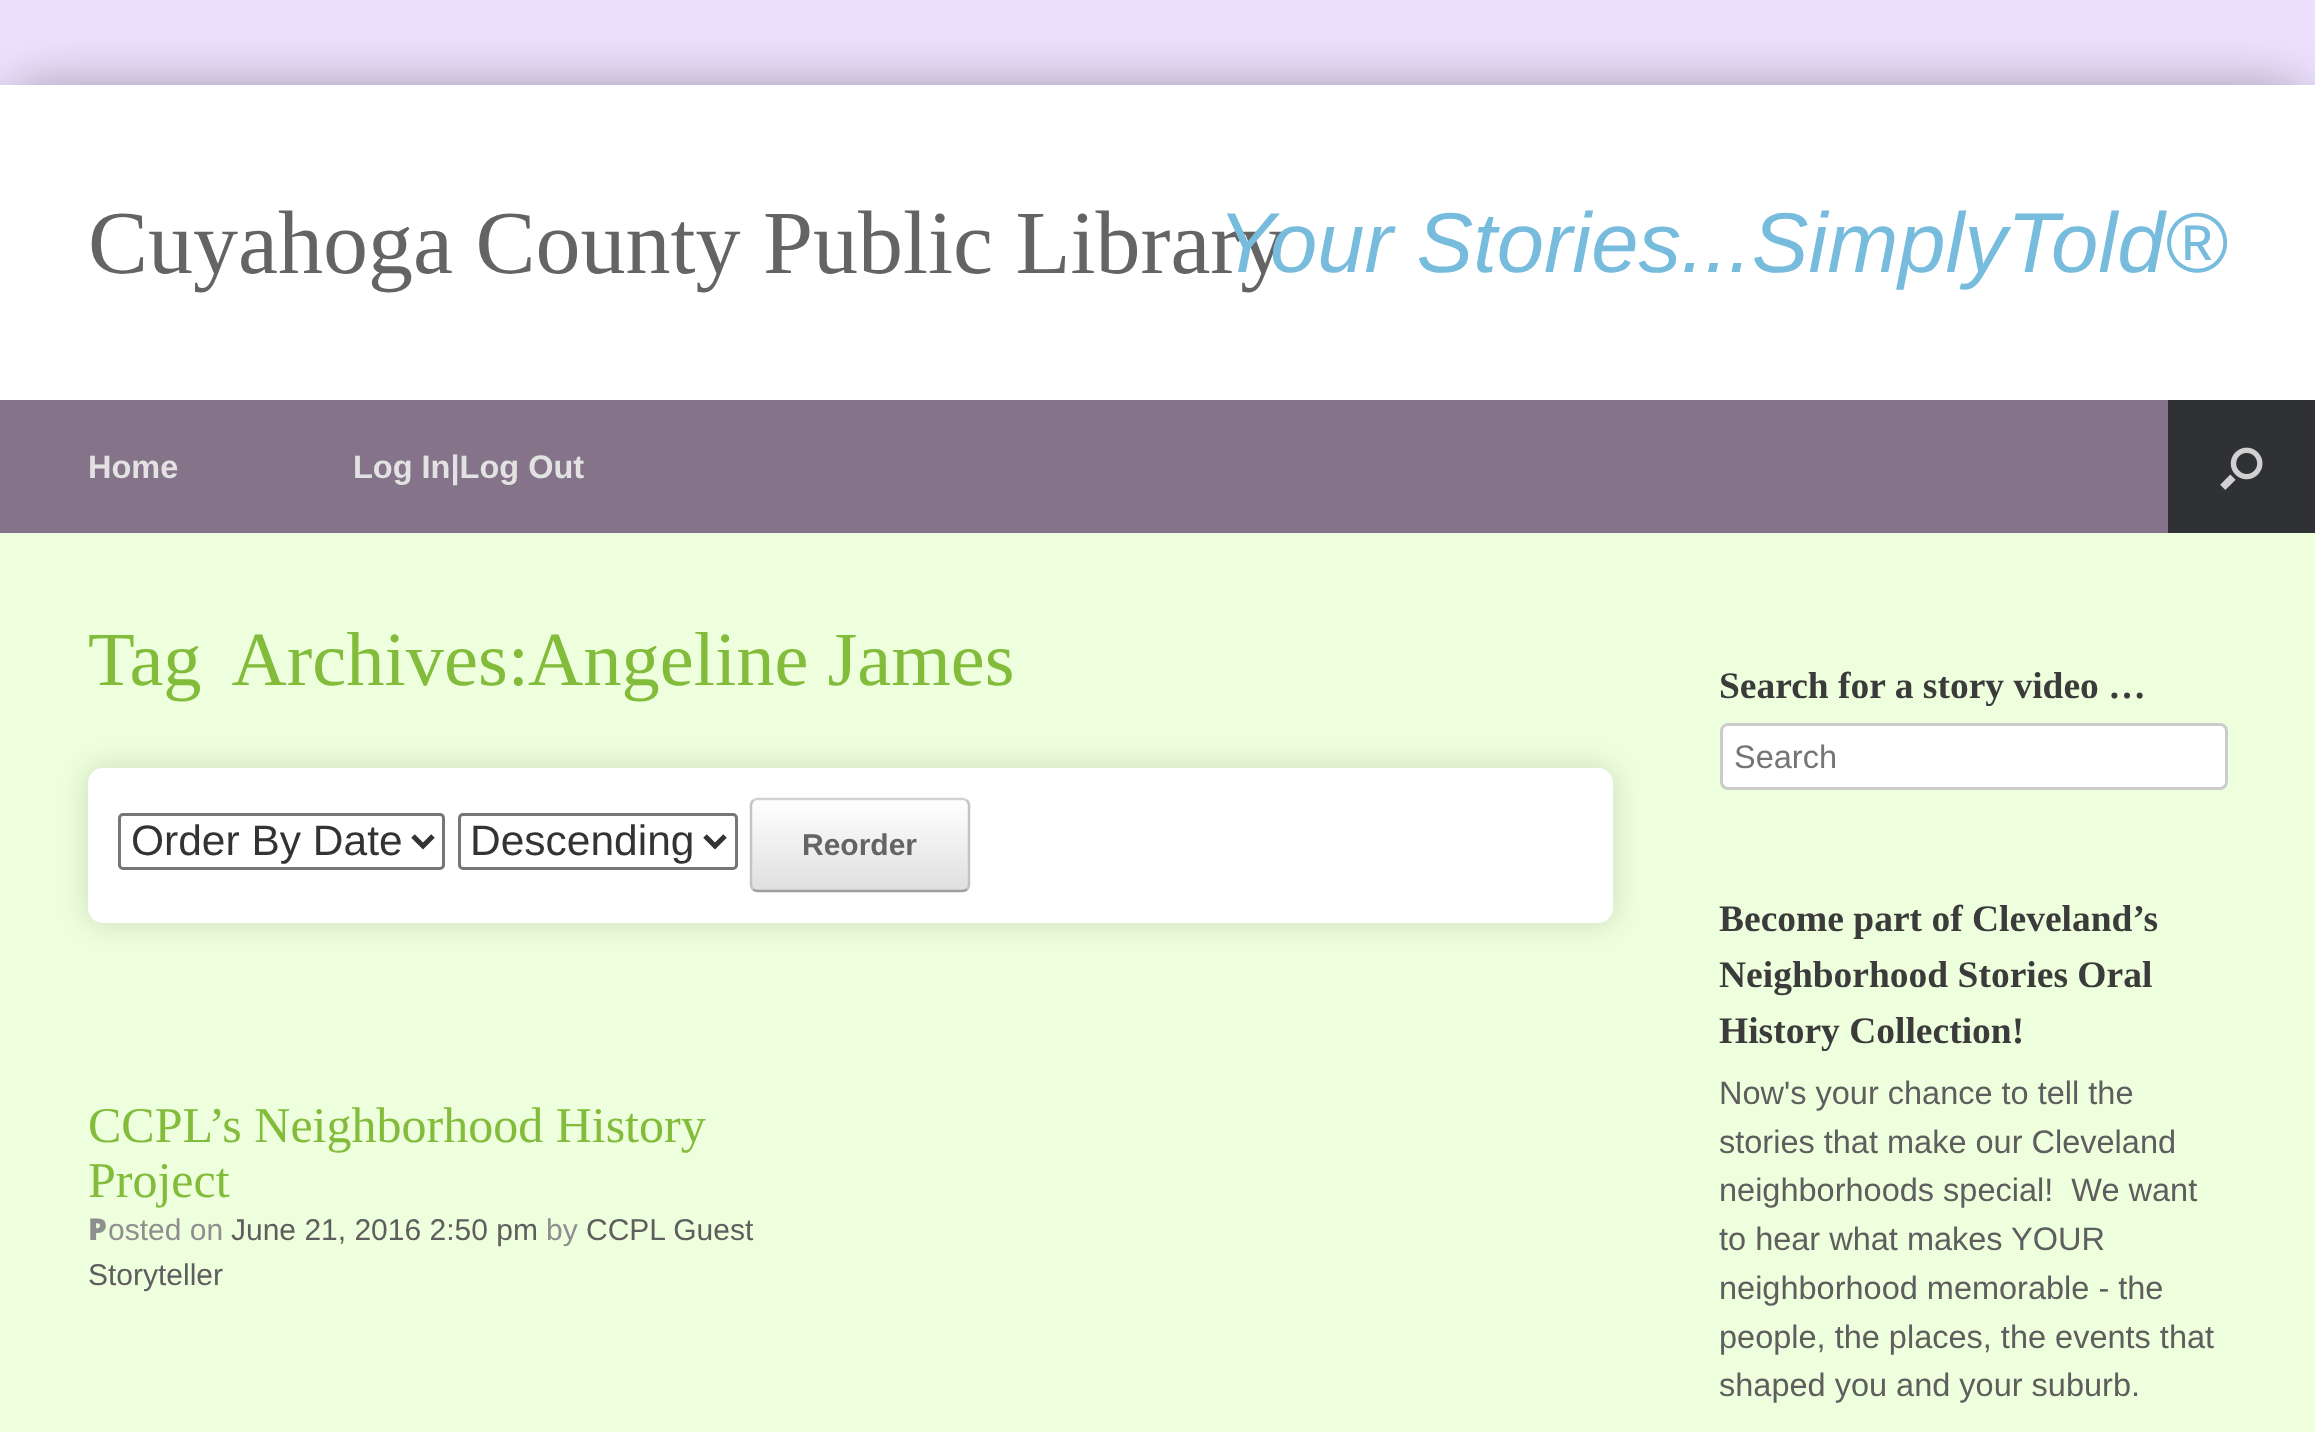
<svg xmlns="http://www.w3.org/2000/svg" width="2315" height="1432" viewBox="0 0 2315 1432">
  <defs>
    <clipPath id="clip1"><rect x="750" y="798" width="220" height="95" rx="8"/></clipPath>
    <linearGradient id="g1" gradientUnits="userSpaceOnUse" x1="753" y1="890" x2="753" y2="800"><stop offset="0" stop-color="rgb(223,223,223)"/><stop offset="1" stop-color="rgb(255,255,255)"/></linearGradient>
  </defs>
  <rect width="100%" height="100%" fill="rgb(236,224,252)"/>
  <rect x="0" y="85" width="2315" height="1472" rx="50" fill="rgba(0,0,0,0.3)" filter="blur(25px)"/>
  <rect x="0" y="85" width="2315" height="315" fill="rgb(255,255,255)"/>
  <text x="88" y="273" font-family="Liberation Serif" font-size="90" fill="rgb(100,100,100)">Cuyahoga County Public Library</text>
  <text x="1218" y="272" font-family="Liberation Sans" font-size="85" font-style="italic" fill="rgb(119,187,221)">Your Stories...SimplyTold®</text>
  <rect x="0" y="400" width="2168" height="133" fill="rgb(132,115,137)"/>
  <g font-family="Liberation Sans" font-size="32.5" font-weight="bold" fill="rgb(226,226,226)">
    <text x="88" y="478">Home</text>
    <text x="353" y="478">Log In|Log Out</text>
  </g>
  <rect x="2168" y="400" width="147" height="133" fill="rgb(48,49,52)"/>
  <image x="2220" y="447" width="43" height="43" href="pic1.png"/>
  <rect x="0" y="533" width="2315" height="899" fill="rgb(238,255,221)"/>
  <g font-family="Liberation Serif" font-size="76.5" fill="rgb(130,188,58)">
    <text x="88" y="685" word-spacing="15">Tag Archives:</text>
    <text x="528" y="685">Angeline James</text>
  </g>
  <rect x="88" y="768" width="1525" height="155" rx="15" fill="rgba(0,0,0,0.15)" filter="blur(14px)"/>
  <rect x="88" y="768" width="1525" height="155" rx="15" fill="rgb(255,255,255)"/>
  <rect x="119.5" y="814.5" width="324" height="54" rx="3.5" fill="none" stroke="rgb(118,118,118)" stroke-width="3"/>
  <path d="M413 836L423 846L433 836" fill="none" stroke="rgb(51,51,51)" stroke-width="5"/>
  <text x="131" y="855" font-family="Liberation Sans" font-size="42.5" fill="rgb(51,51,51)">Order By Date</text>
  <rect x="459.5" y="814.5" width="277" height="54" rx="3.5" fill="none" stroke="rgb(118,118,118)" stroke-width="3"/>
  <path d="M705 836L715 846L725 836" fill="none" stroke="rgb(51,51,51)" stroke-width="5"/>
  <text x="470" y="855" font-family="Liberation Sans" font-size="42.5" fill="rgb(51,51,51)">Descending</text>
  <g clip-path="url(#clip1)">
    <rect x="750" y="800" width="220" height="90" fill="url(#g1)"/>
  </g>
  <path d="M753 800.5C754.5 799.5 756 799 757.5 799H962.5C964 799 965.5 799.5 967 800.5" fill="none" stroke="rgb(210,210,210)" stroke-width="2.5"/>
  <path d="M967 800.5C968 802 969 803.5 969 805V885C969 886.5 968 888 967 889.5" fill="none" stroke="rgb(195,195,195)" stroke-width="2.5"/>
  <path d="M967 889.5C965.5 890.5 964 891 962.5 891H757.5C756 891 754.5 890.5 753 889.5" fill="none" stroke="rgb(159,159,159)" stroke-width="2.5"/>
  <path d="M753 889.5C752 888 751 886.5 751 885V805C751 803.5 752 802 753 800.5" fill="none" stroke="rgb(195,195,195)" stroke-width="2.5"/>
  <text x="802" y="855" font-family="Liberation Sans" font-size="30" font-weight="bold" fill="rgb(100,100,100)">Reorder</text>
  <g font-family="Liberation Serif" font-size="50" fill="rgb(130,188,58)">
    <text>
      <tspan x="88" y="1142">CCPL’s Neighborhood History</tspan>
      <tspan x="88" y="1197">Project</tspan>
    </text>
  </g>
  <text x="88" y="1240" font-family="Noto Sans" font-size="30" font-weight="900" fill="rgb(143,143,143)">P</text>
  <text x="108" y="1240" font-family="Liberation Sans" font-size="30" fill="rgb(143,143,143)">osted on</text>
  <text x="231" y="1240" font-family="Liberation Sans" font-size="30" fill="rgb(94,94,94)">June 21, 2016 2:50 pm</text>
  <text x="546" y="1240" font-family="Liberation Sans" font-size="30" fill="rgb(143,143,143)">by</text>
  <g font-family="Liberation Sans" font-size="30" fill="rgb(94,94,94)">
    <text x="586" y="1240">CCPL Guest</text>
    <text x="88" y="1285">Storyteller</text>
  </g>
  <text x="1719" y="698" font-family="Liberation Serif" font-size="37.5" font-weight="bold" fill="rgb(59,59,59)">Search for a story video …</text>
  <rect x="1721.5" y="724.5" width="505" height="64" rx="6.5" fill="rgb(255,255,255)" stroke="rgb(204,204,204)" stroke-width="3"/>
  <text x="1734" y="768" font-family="Liberation Sans" font-size="32.5" fill="rgb(117,117,117)">Search</text>
  <g font-family="Liberation Serif" font-size="37.5" font-weight="bold" fill="rgb(59,59,59)">
    <text>
      <tspan x="1719" y="931">Become part of Cleveland’s</tspan>
      <tspan x="1719" y="987">Neighborhood Stories Oral</tspan>
      <tspan x="1719" y="1043">History Collection!</tspan>
    </text>
  </g>
  <g font-family="Liberation Sans" font-size="32.5" fill="rgb(94,94,94)">
    <text xml:space="preserve"><tspan x="1719" y="1104">Now's your chance to tell the</tspan><tspan x="1719" y="1153">stories that make our Cleveland</tspan><tspan x="1719" y="1201">neighborhoods special!  We want</tspan><tspan x="1719" y="1250">to hear what makes YOUR</tspan><tspan x="1719" y="1299">neighborhood memorable - the</tspan><tspan x="1719" y="1348">people, the places, the events that</tspan><tspan x="1719" y="1396">shaped you and your suburb.</tspan></text>
  </g>
</svg>
